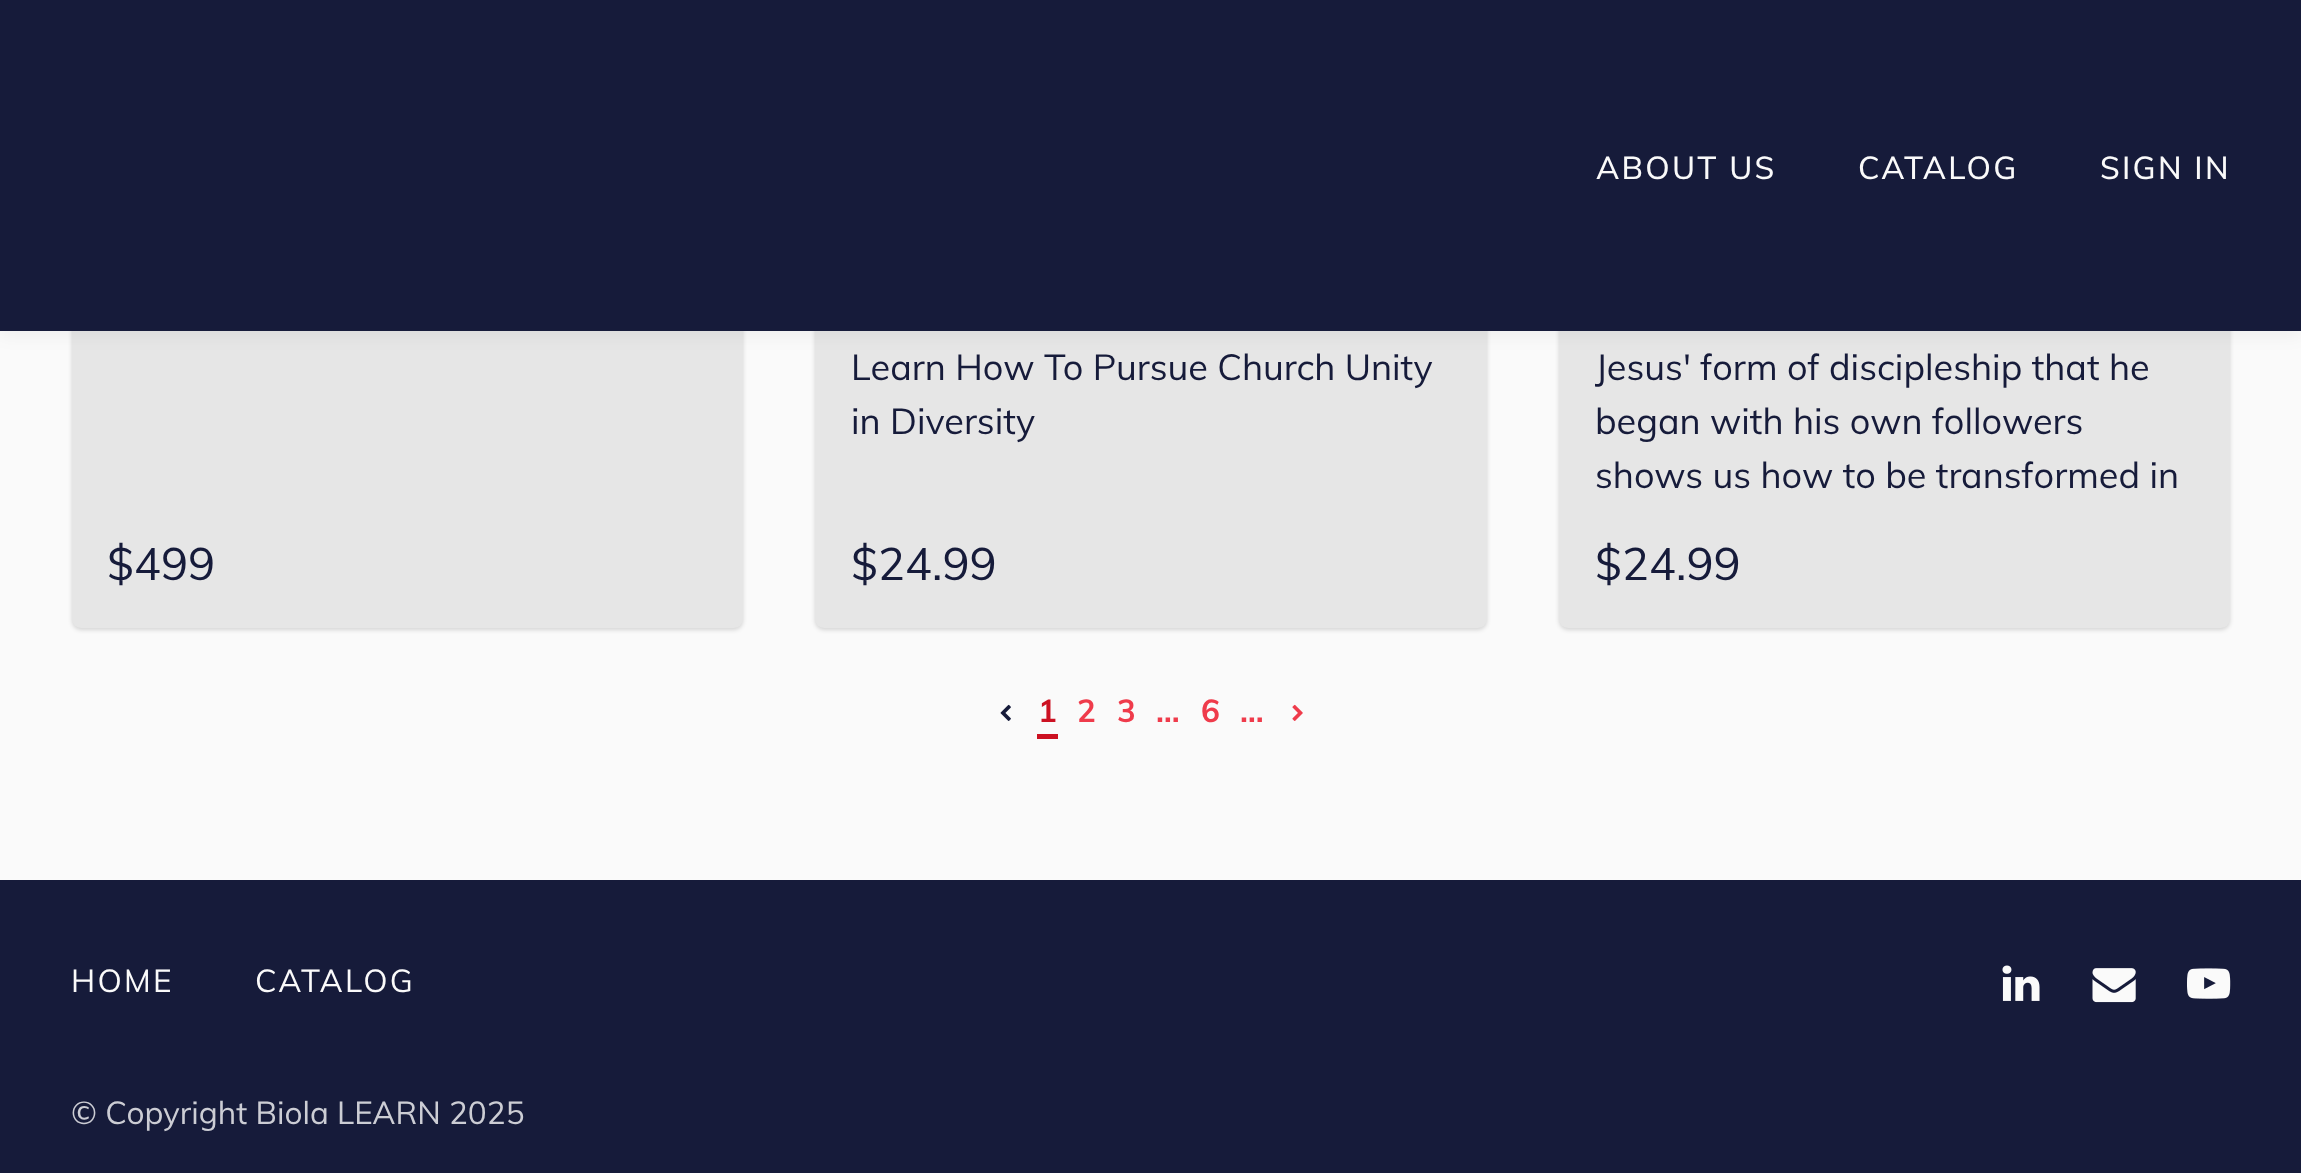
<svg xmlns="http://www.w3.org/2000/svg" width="2301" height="1173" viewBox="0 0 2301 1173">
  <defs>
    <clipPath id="clip1"><rect x="1595" y="340" width="599" height="162"/></clipPath>
  </defs>
  <rect width="100%" height="100%" fill="rgb(250,250,250)"/>
  <rect x="72" y="-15" width="671" height="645" rx="9" fill="rgba(0,0,0,0.15)" filter="blur(2px)"/>
  <rect x="72" y="-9" width="671" height="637" rx="9" fill="rgb(230,230,230)"/>
  <rect x="815" y="-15" width="672" height="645" rx="9" fill="rgba(0,0,0,0.15)" filter="blur(2px)"/>
  <rect x="815" y="-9" width="672" height="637" rx="9" fill="rgb(230,230,230)"/>
  <rect x="1559" y="-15" width="671" height="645" rx="9" fill="rgba(0,0,0,0.15)" filter="blur(2px)"/>
  <rect x="1559" y="-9" width="671" height="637" rx="9" fill="rgb(230,230,230)"/>
  <rect x="0" y="5" width="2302" height="330" fill="rgba(0,0,0,0.05)" filter="blur(9px)"/>
  <rect x="0" y="0" width="2301" height="331" fill="rgb(22,27,58)"/>
  <g font-family="Muli" font-size="31.5" font-weight="500" letter-spacing="2.25" fill="rgb(250,250,250)">
    <text x="1596" y="179">ABOUT US</text>
    <text x="1858" y="179">CATALOG</text>
    <text x="2100" y="179">SIGN IN</text>
  </g>
  <text x="107" y="580" font-family="Muli" font-size="45" fill="rgb(22,27,58)">$499</text>
  <g font-family="Muli" font-size="36" fill="rgb(22,27,58)">
    <text>
      <tspan x="851" y="380">Learn How To Pursue Church Unity</tspan>
      <tspan x="851" y="434">in Diversity</tspan>
    </text>
  </g>
  <text x="851" y="580" font-family="Muli" font-size="45" fill="rgb(22,27,58)">$24.99</text>
  <g clip-path="url(#clip1)">
    <text x="1595" y="380" font-family="Muli" font-size="36" fill="rgb(22,27,58)">Jesus' form of discipleship that he</text>
  </g>
  <g font-family="Muli" font-size="36" fill="rgb(22,27,58)">
    <text>
      <tspan x="1595" y="434">began with his own followers</tspan>
      <tspan x="1595" y="488">shows us how to be transformed in</tspan>
    </text>
  </g>
  <text x="1595" y="580" font-family="Muli" font-size="45" fill="rgb(22,27,58)">$24.99</text>
  <image x="1000" y="704" width="11" height="17" href="pic1.png"/>
  <text x="1038" y="722" font-family="Muli" font-size="31.5" font-weight="bold" fill="rgb(204,17,34)">1</text>
  <rect x="1037" y="734" width="21" height="5" fill="rgb(204,17,34)"/>
  <g font-family="Muli" font-size="31.5" font-weight="bold" fill="rgb(239,59,75)">
    <text x="1077" y="722">2</text>
    <text x="1117" y="722">3</text>
    <text x="1156" y="722">…</text>
    <text x="1201" y="722">6</text>
    <text x="1240" y="722">…</text>
  </g>
  <image x="1292" y="704" width="11" height="17" href="pic2.png"/>
  <rect x="0" y="880" width="2301" height="293" fill="rgb(22,27,58)"/>
  <g font-family="Muli" font-size="31.5" letter-spacing="2.25" fill="rgb(250,250,250)">
    <text x="71" y="992">HOME</text>
    <text x="255" y="992">CATALOG</text>
  </g>
  <image x="2002" y="965" width="38" height="36" href="pic3.png"/>
  <image x="2092" y="968" width="44" height="35" href="pic4.png"/>
  <image x="2187" y="968" width="44" height="31" href="pic5.png"/>
  <text x="71" y="1124" font-family="Muli" font-size="31.5" fill="rgb(204,205,212)">© Copyright Biola LEARN 2025</text>
</svg>
